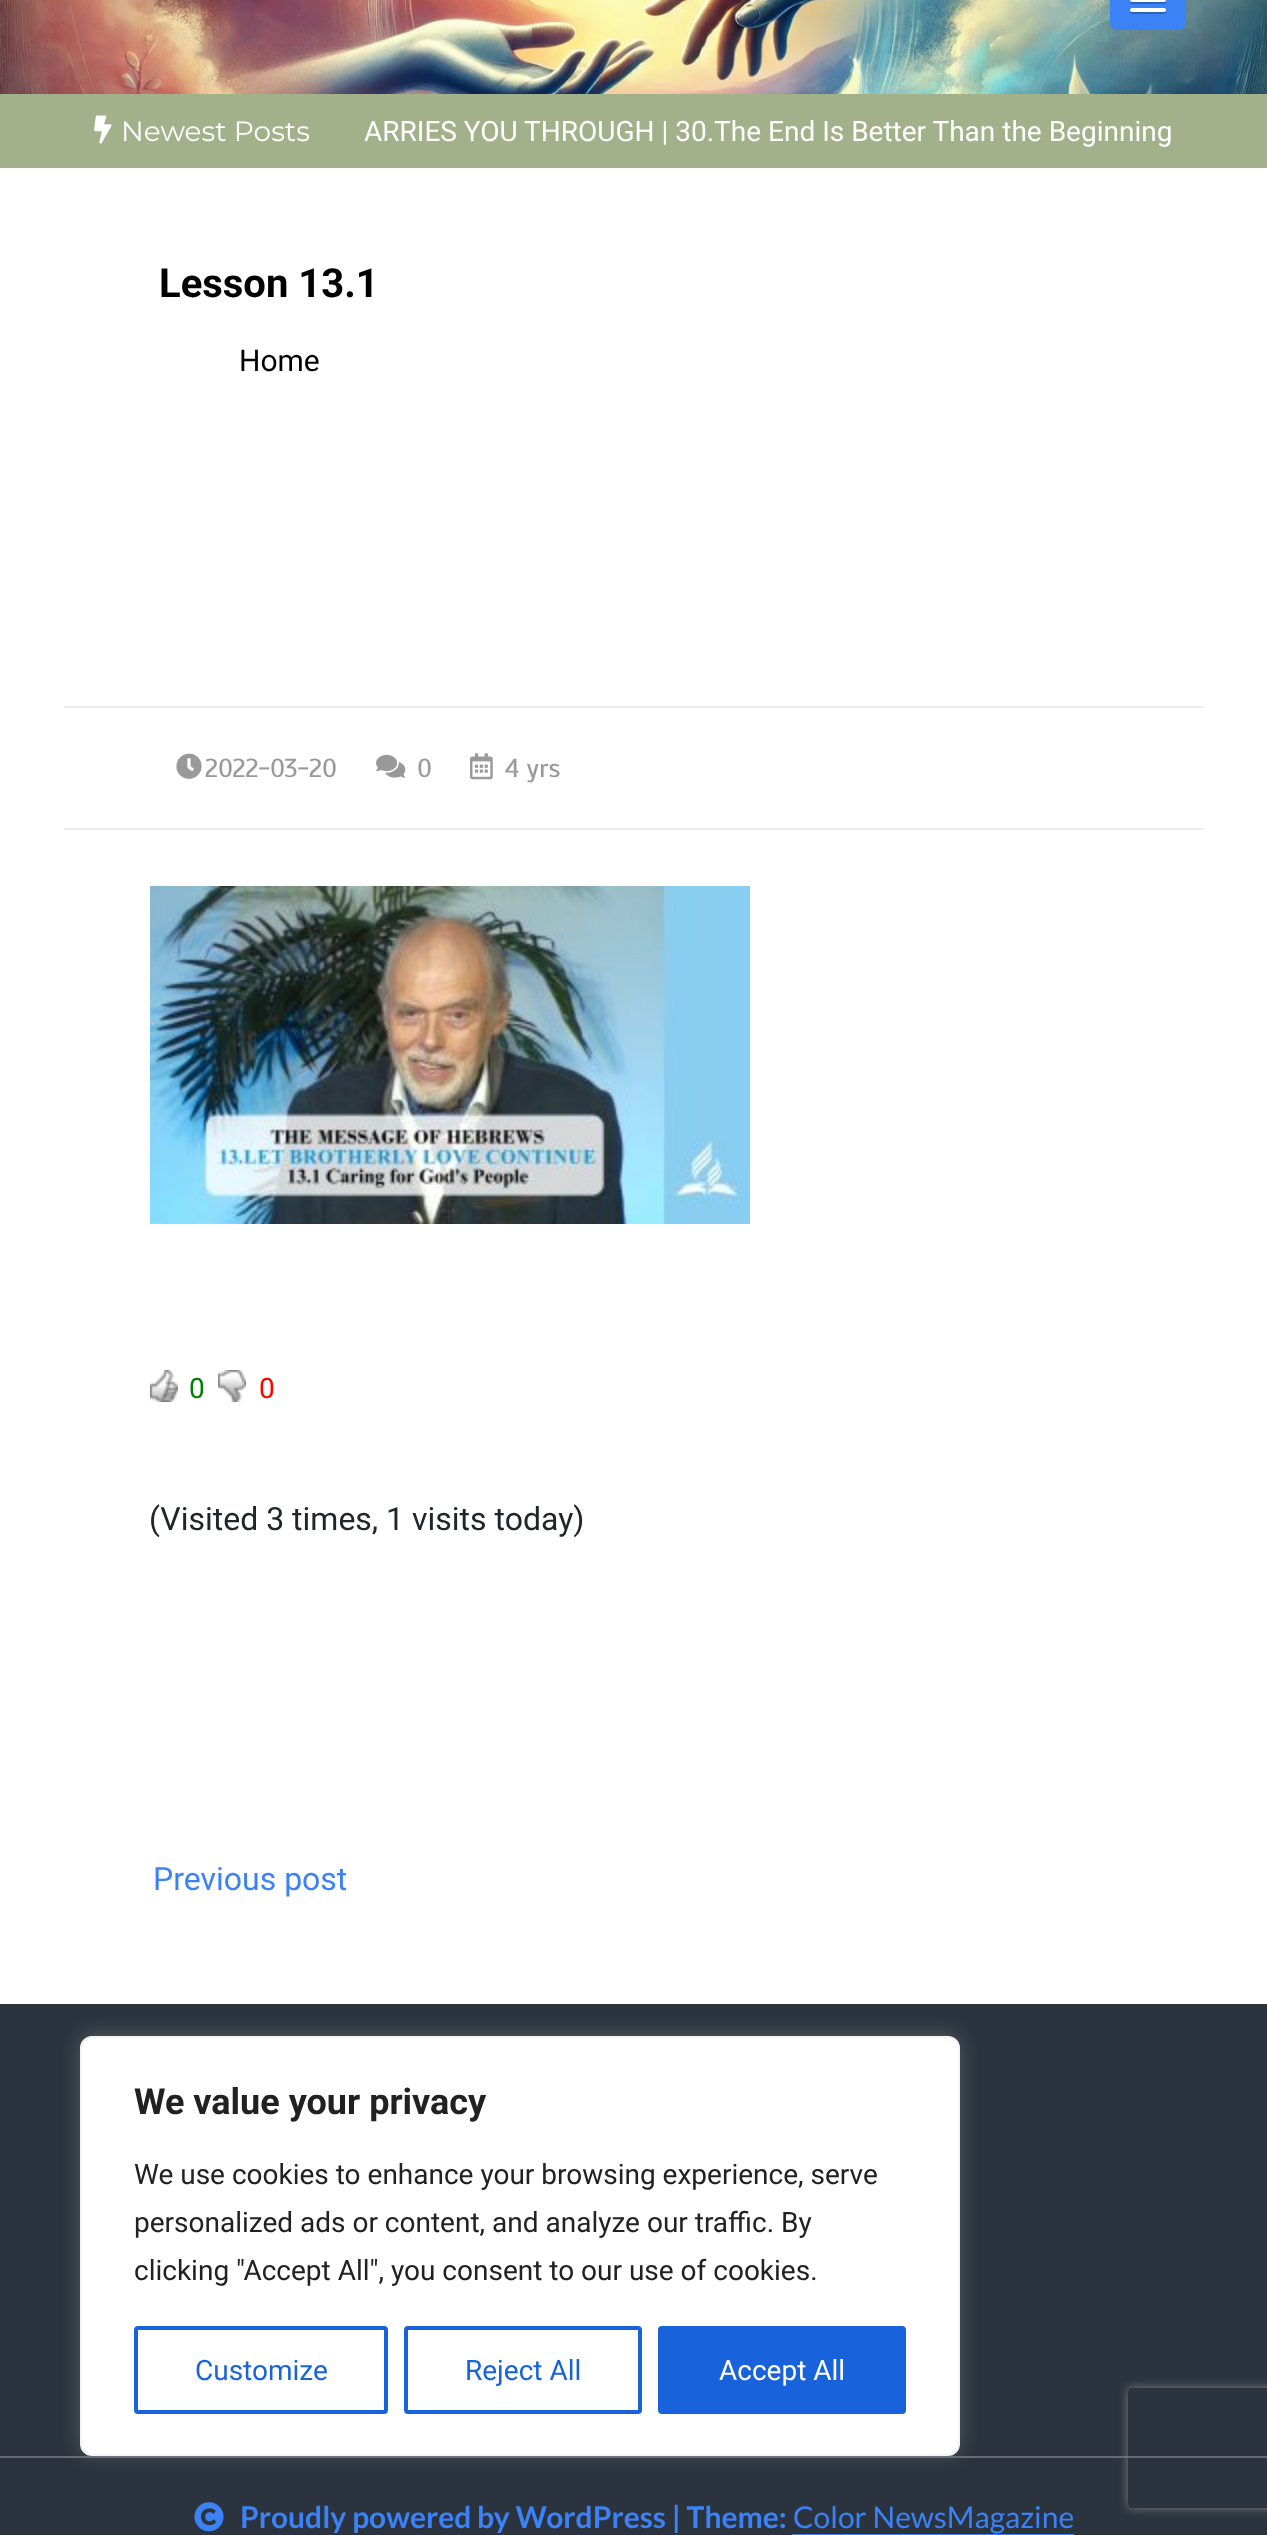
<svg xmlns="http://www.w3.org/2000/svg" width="1267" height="2535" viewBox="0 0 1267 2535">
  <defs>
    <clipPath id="clip1"><path d="M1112 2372H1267V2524H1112ZM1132 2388H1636C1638 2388 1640 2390 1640 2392V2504C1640 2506 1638 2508 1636 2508H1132C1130 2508 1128 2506 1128 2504V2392C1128 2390 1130 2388 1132 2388Z" clip-rule="evenodd"/></clipPath>
  </defs>
  <rect width="100%" height="100%" fill="rgb(163,177,138)"/>
  <image x="0" y="0" width="1267" height="94" href="pic1.png"/>
  <rect x="1110" y="-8" width="76" height="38" rx="8" fill="rgb(59,130,246)"/>
  <path d="M1130.5 1C1128 5 1137 4 1137.5 4H1158.5C1159 4 1168 5 1165.5 1C1165.5 1.5 1164.5 2 1164 2H1132C1131.5 2 1130.5 1.5 1130.5 1Z" fill="rgb(44,98,185)"/>
  <rect x="1130" y="-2" width="36" height="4" rx="2" fill="rgb(255,255,255)"/>
  <path d="M1130.5 11C1128 15 1137 14 1137.5 14H1158.5C1159 14 1168 15 1165.5 11C1165.5 11.5 1164.5 12 1164 12H1132C1131.5 12 1130.5 11.5 1130.5 11Z" fill="rgb(44,98,185)"/>
  <rect x="1130" y="8" width="36" height="4" rx="2" fill="rgb(255,255,255)"/>
  <image x="94" y="115" width="18" height="29" href="pic2.png"/>
  <text x="121" y="141" font-family="Montserrat" font-size="28" fill="rgb(255,255,255)">Newest Posts</text>
  <text x="364" y="141" font-family="Roboto" font-size="28" fill="rgb(255,255,255)">ARRIES YOU THROUGH | 30.The End Is Better Than the Beginning</text>
  <rect x="0" y="168" width="1267" height="1836" fill="rgb(255,255,255)"/>
  <text x="159" y="297" font-family="Roboto" font-size="40" font-weight="bold" fill="rgb(0,0,0)">Lesson 13.1</text>
  <text x="239" y="371" font-family="Roboto" font-size="30" fill="rgb(0,0,0)">Home</text>
  <rect x="64" y="706" width="1140" height="2" fill="rgb(235,235,235)"/>
  <rect x="64" y="828" width="1140" height="2" fill="rgb(235,235,235)"/>
  <image x="176" y="753" width="26" height="26" href="pic3.png"/>
  <text x="205" y="777" font-family="Scada" font-size="26" fill="rgb(153,153,153)">2022-03-20</text>
  <image x="376" y="754" width="30" height="24" href="pic4.png"/>
  <text x="417" y="777" font-family="Scada" font-size="26" fill="rgb(153,153,153)">0</text>
  <image x="470" y="753" width="23" height="27" href="pic5.png"/>
  <text x="505" y="777" font-family="Scada" font-size="26" fill="rgb(153,153,153)">4 yrs</text>
  <image x="150" y="886" width="600" height="338" href="pic6.png"/>
  <image x="150" y="1370" width="28" height="32" href="pic7.png"/>
  <text x="189" y="1398" font-family="Roboto" font-size="28" fill="rgb(0,128,0)">0</text>
  <image x="218" y="1370" width="28" height="32" href="pic8.png"/>
  <text x="259" y="1398" font-family="Roboto" font-size="28" fill="rgb(255,0,0)">0</text>
  <text x="149" y="1530" font-family="Roboto" font-size="32" fill="rgb(33,37,41)">(Visited 3 times, 1 visits today)</text>
  <text x="153" y="1890" font-family="Roboto" font-size="32" fill="rgb(59,130,246)">Previous post</text>
  <rect x="0" y="2004" width="1267" height="531" fill="rgb(43,52,62)"/>
  <rect x="0" y="2456" width="1267" height="2" fill="rgb(101,106,112)"/>
  <rect x="80" y="2034" width="880" height="420" rx="12" fill="rgba(172,171,171,0.3)" filter="blur(10px)"/>
  <rect x="81" y="2037" width="878" height="418" rx="11" fill="rgb(255,255,255)" stroke="rgb(244,244,244)" stroke-width="2"/>
  <text x="134" y="2114" font-family="Roboto" font-size="36" font-weight="bold" fill="rgb(33,33,33)">We value your privacy</text>
  <g font-family="Roboto" font-size="28" fill="rgb(33,33,33)">
    <text>
      <tspan x="134" y="2184">We use cookies to enhance your browsing experience, serve</tspan>
      <tspan x="134" y="2232">personalized ads or content, and analyze our traffic. By</tspan>
      <tspan x="134" y="2280">clicking "Accept All", you consent to our use of cookies.</tspan>
    </text>
  </g>
  <rect x="136" y="2328" width="250" height="84" rx="2" fill="none" stroke="rgb(24,99,220)" stroke-width="4"/>
  <text x="195" y="2380" font-family="Roboto" font-size="28" fill="rgb(24,99,220)">Customize</text>
  <rect x="406" y="2328" width="234" height="84" rx="2" fill="none" stroke="rgb(24,99,220)" stroke-width="4"/>
  <text x="465" y="2380" font-family="Roboto" font-size="28" fill="rgb(24,99,220)">Reject All</text>
  <rect x="660" y="2328" width="244" height="84" rx="2" fill="rgb(24,99,220)" stroke="rgb(24,99,220)" stroke-width="4"/>
  <text x="719" y="2380" font-family="Roboto" font-size="28" fill="rgb(255,255,255)">Accept All</text>
  <image x="194" y="2502" width="30" height="30" href="pic9.png"/>
  <text x="240" y="2528" font-family="Lato" font-size="30" font-weight="bold" fill="rgb(59,130,246)">Proudly powered by WordPress | Theme:</text>
  <text x="793" y="2528" font-family="Lato" font-size="30" fill="rgb(59,130,246)">Color NewsMagazine</text>
  <rect x="792" y="2534" width="282" height="1" fill="rgb(59,130,246)"/>
  <g clip-path="url(#clip1)">
    <rect x="1128" y="2388" width="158" height="120" rx="4" fill="rgb(128,128,128)" filter="blur(5px)"/>
  </g>
</svg>
